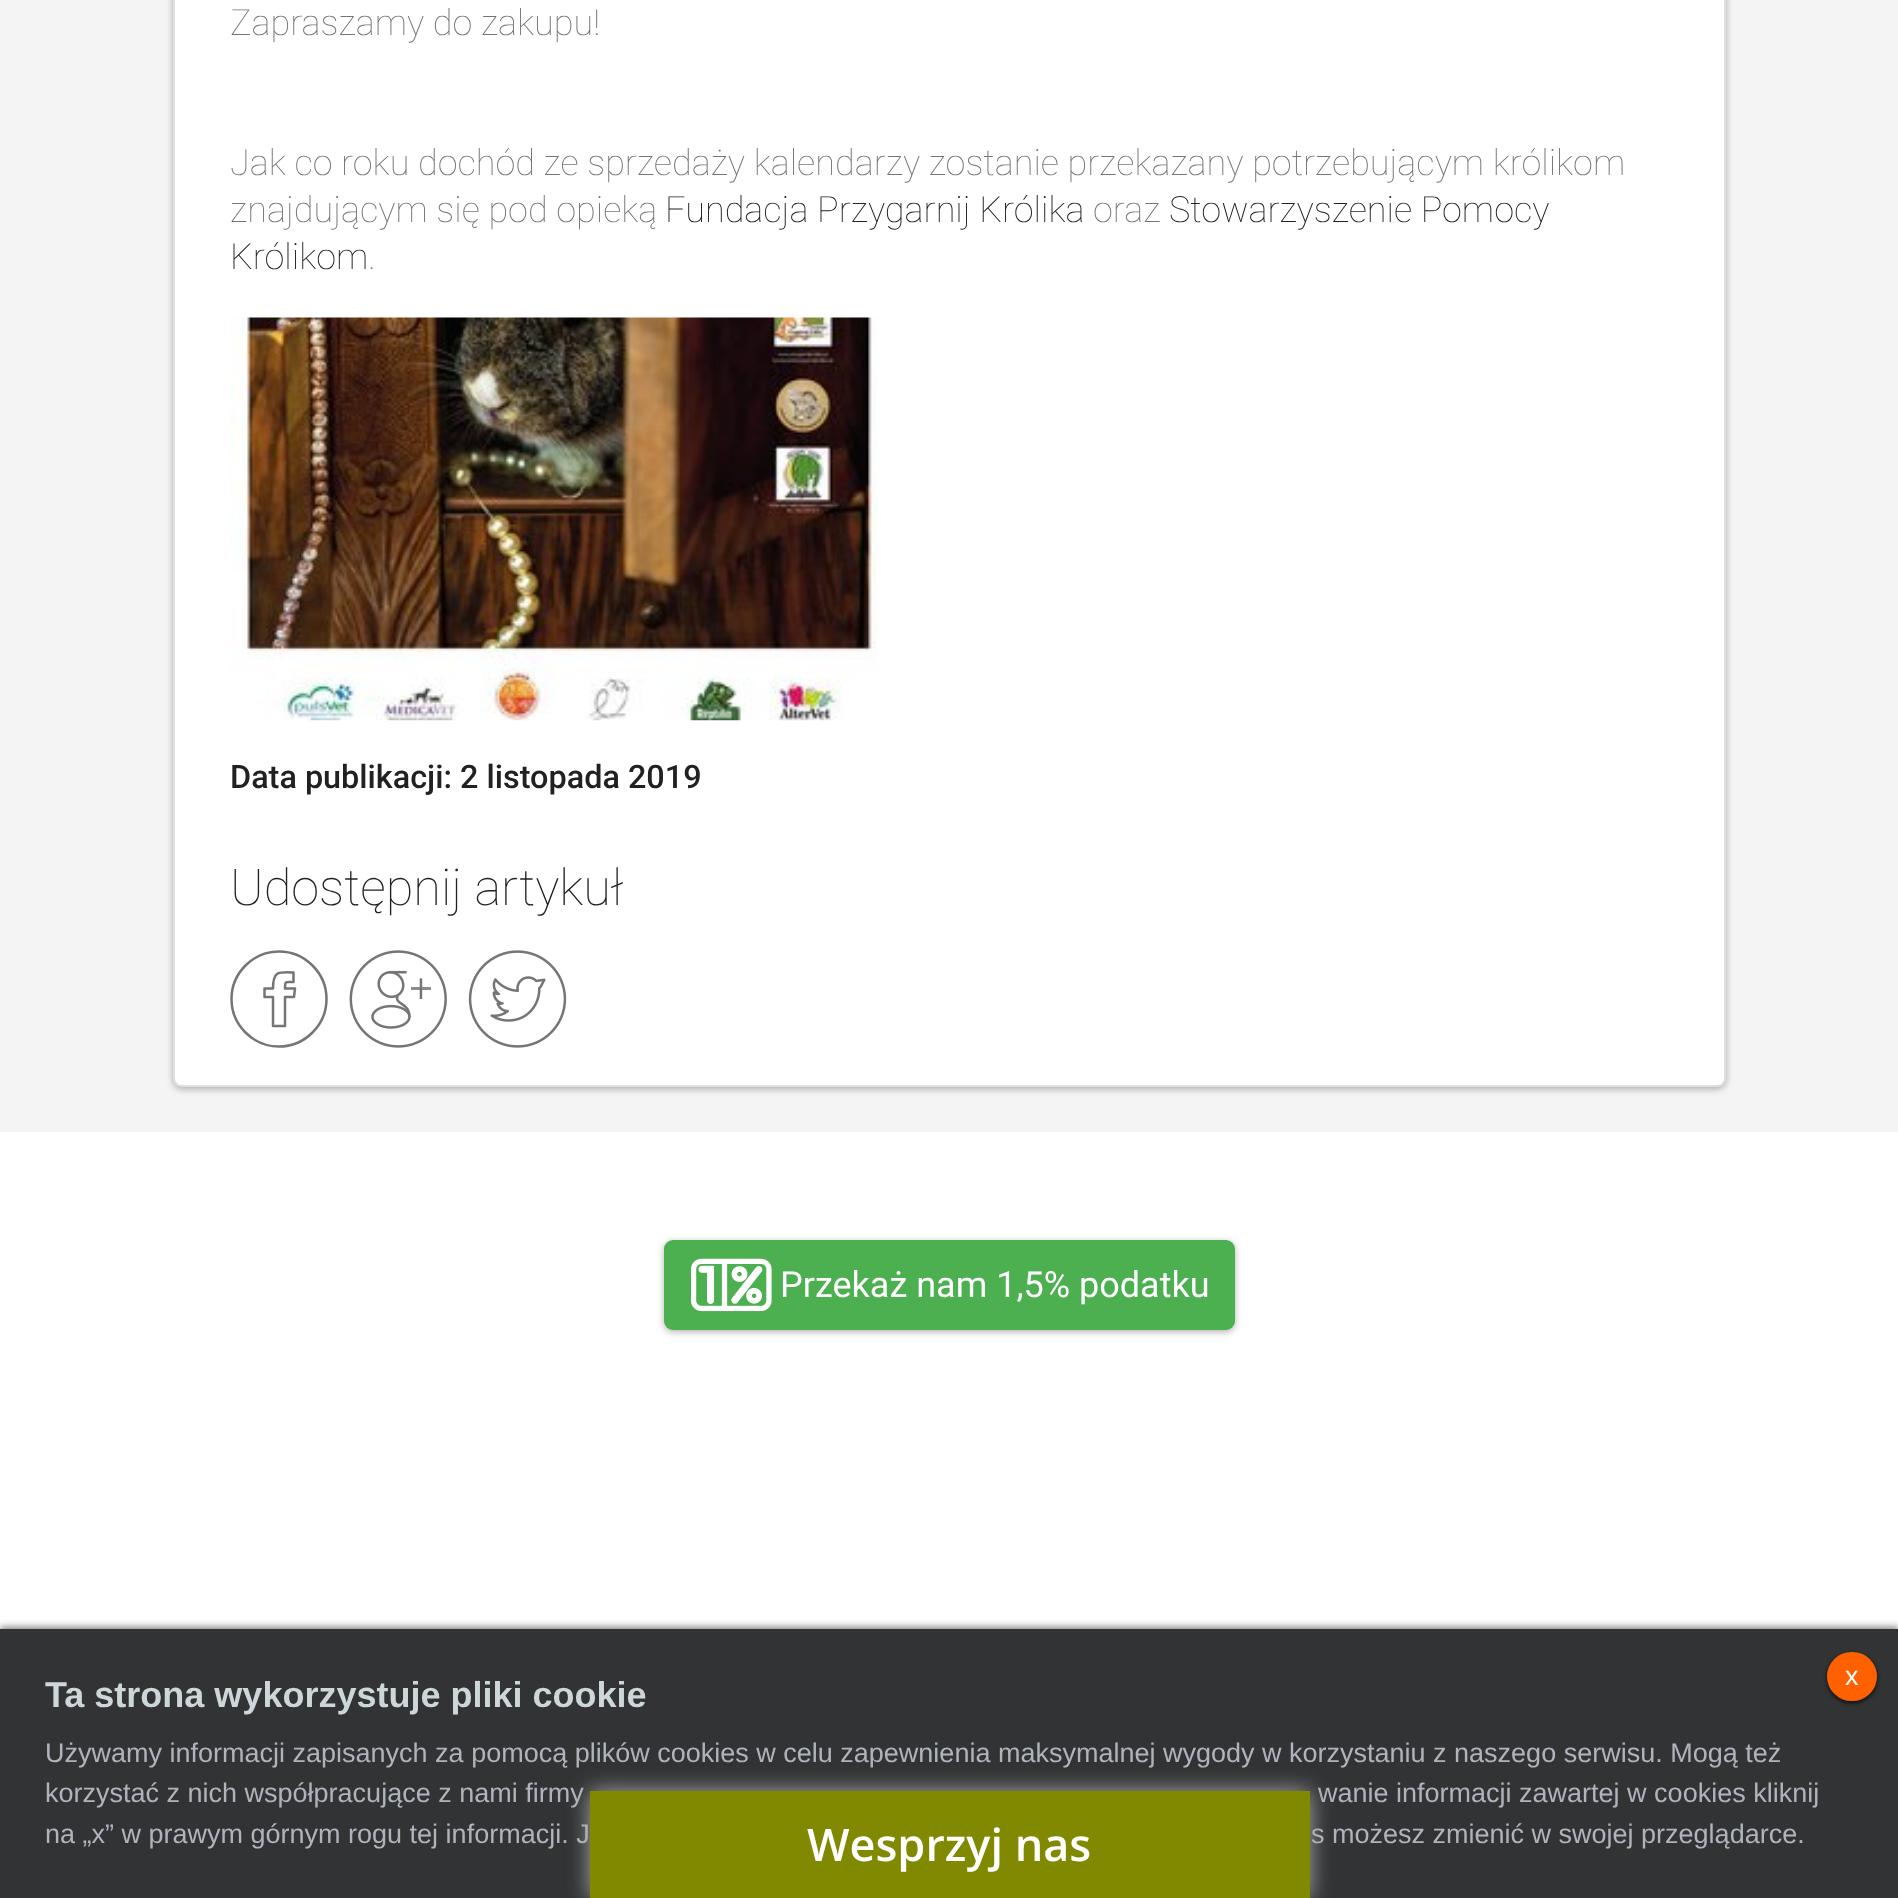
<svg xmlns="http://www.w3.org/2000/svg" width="1898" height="1898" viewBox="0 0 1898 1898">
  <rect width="100%" height="100%" fill="rgb(255,255,255)"/>
  <rect x="0" y="0" width="1898" height="1132" fill="rgb(244,244,244)"/>
  <rect x="173" y="-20" width="1553" height="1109" rx="9" fill="rgba(0,0,0,0.3)" filter="blur(3.5px)"/>
  <rect x="173" y="-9" width="1553" height="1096" rx="9" fill="rgb(255,255,255)"/>
  <rect x="174" y="-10" width="1551" height="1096" rx="8" fill="none" stroke="rgba(0,0,0,0.12)" stroke-width="2"/>
  <g font-family="Roboto" font-size="36" font-weight="100" fill="rgb(117,117,117)">
    <text x="230" y="35">Zapraszamy do zakupu!</text>
    <text>
      <tspan x="230" y="175">Jak co roku dochód ze sprzedaży kalendarzy zostanie przekazany potrzebującym królikom</tspan>
      <tspan x="230" y="222">znajdującym się pod opieką</tspan>
    </text>
  </g>
  <text x="665" y="222" font-family="Roboto" font-size="36" font-weight="100" fill="rgb(33,33,33)">Fundacja Przygarnij Królika</text>
  <text x="1093" y="222" font-family="Roboto" font-size="36" font-weight="100" fill="rgb(117,117,117)">oraz</text>
  <g font-family="Roboto" font-size="36" font-weight="100" fill="rgb(33,33,33)">
    <text x="1169" y="222">Stowarzyszenie Pomocy</text>
    <text x="230" y="269">Królikom</text>
  </g>
  <text x="368" y="269" font-family="Roboto" font-size="36" font-weight="100" fill="rgb(117,117,117)">.</text>
  <image x="229" y="317" width="649" height="404" href="pic1.png"/>
  <text x="230" y="788" font-family="Roboto" font-size="32.4" font-weight="500" fill="rgb(33,33,33)">Data publikacji: 2 listopada 2019</text>
  <text x="230" y="905" font-family="Roboto" font-size="50.5" font-weight="100" fill="rgb(33,33,33)">Udostępnij artykuł</text>
  <path d="M326.5 999C326.5 1025 305 1046.5 279 1046.5C253 1046.5 231.5 1025 231.5 999C231.5 973 253 951.5 279 951.5C305 951.5 326.5 973 326.5 999Z" fill="none" stroke="rgb(117,117,117)" stroke-width="2.5" stroke-linecap="round" stroke-linejoin="round"/>
  <path d="M295 988.5H285C285 980.5 285.5 982 293.5 982V972.5C278 972 273 971 273 988.5H264.5V997H273V1026H285V997H294Z" fill="none" stroke="rgb(117,117,117)" stroke-width="2.5" stroke-linejoin="round"/>
  <image x="349" y="950" width="98" height="98" href="pic2.png"/>
  <image x="468" y="950" width="99" height="98" href="pic3.png"/>
  <rect x="664" y="1242" width="571" height="90" rx="9" fill="rgba(0,0,0,0.3)" filter="blur(3.5px)"/>
  <rect x="664" y="1240" width="571" height="90" rx="9" fill="rgb(76,175,80)"/>
  <image x="691" y="1258" width="81" height="54" href="pic4.png"/>
  <text x="780" y="1297" font-family="Roboto" font-size="36" fill="rgb(255,255,255)">Przekaż nam 1,5% podatku</text>
  <rect x="0" y="1627" width="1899" height="270" fill="rgba(0,0,0,0.5)" filter="blur(3.5px)"/>
  <rect x="0" y="1629" width="1898" height="269" fill="rgb(50,51,52)"/>
  <rect x="1827" y="1654" width="50" height="49" rx="24.5" fill="rgba(0,0,0,0.75)" filter="blur(2px)"/>
  <rect x="1827" y="1652" width="50" height="49" rx="24.5" fill="rgb(255,96,0)"/>
  <text x="1845" y="1685" font-family="Liberation Sans" font-size="27" fill="rgb(255,255,255)">x</text>
  <text x="45" y="1707" font-family="Liberation Sans" font-size="36" font-weight="bold" fill="rgb(205,215,218)">Ta strona wykorzystuje pliki cookie</text>
  <g font-family="Liberation Sans" font-size="27" fill="rgb(175,180,188)">
    <text>
      <tspan x="45" y="1762">Używamy informacji zapisanych za pomocą plików cookies w celu zapewnienia maksymalnej wygody w korzystaniu z naszego serwisu. Mogą też</tspan>
      <tspan x="45" y="1802">korzystać z nich współpracujące z nami firmy</tspan>
    </text>
    <text x="1318" y="1802">wanie informacji zawartej w cookies kliknij</text>
    <text x="45" y="1843">na „x” w prawym górnym rogu tej informacji. J</text>
    <text x="1311" y="1843">s możesz zmienić w swojej przeglądarce.</text>
  </g>
  <rect x="590" y="1791" width="720" height="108" fill="rgb(170,170,170)" filter="blur(11px)"/>
  <rect x="590" y="1791" width="720" height="107" fill="rgb(128,137,0)"/>
  <text x="807" y="1861" font-family="Open Sans" font-size="45" font-weight="600" fill="rgb(255,255,255)">Wesprzyj nas</text>
</svg>
